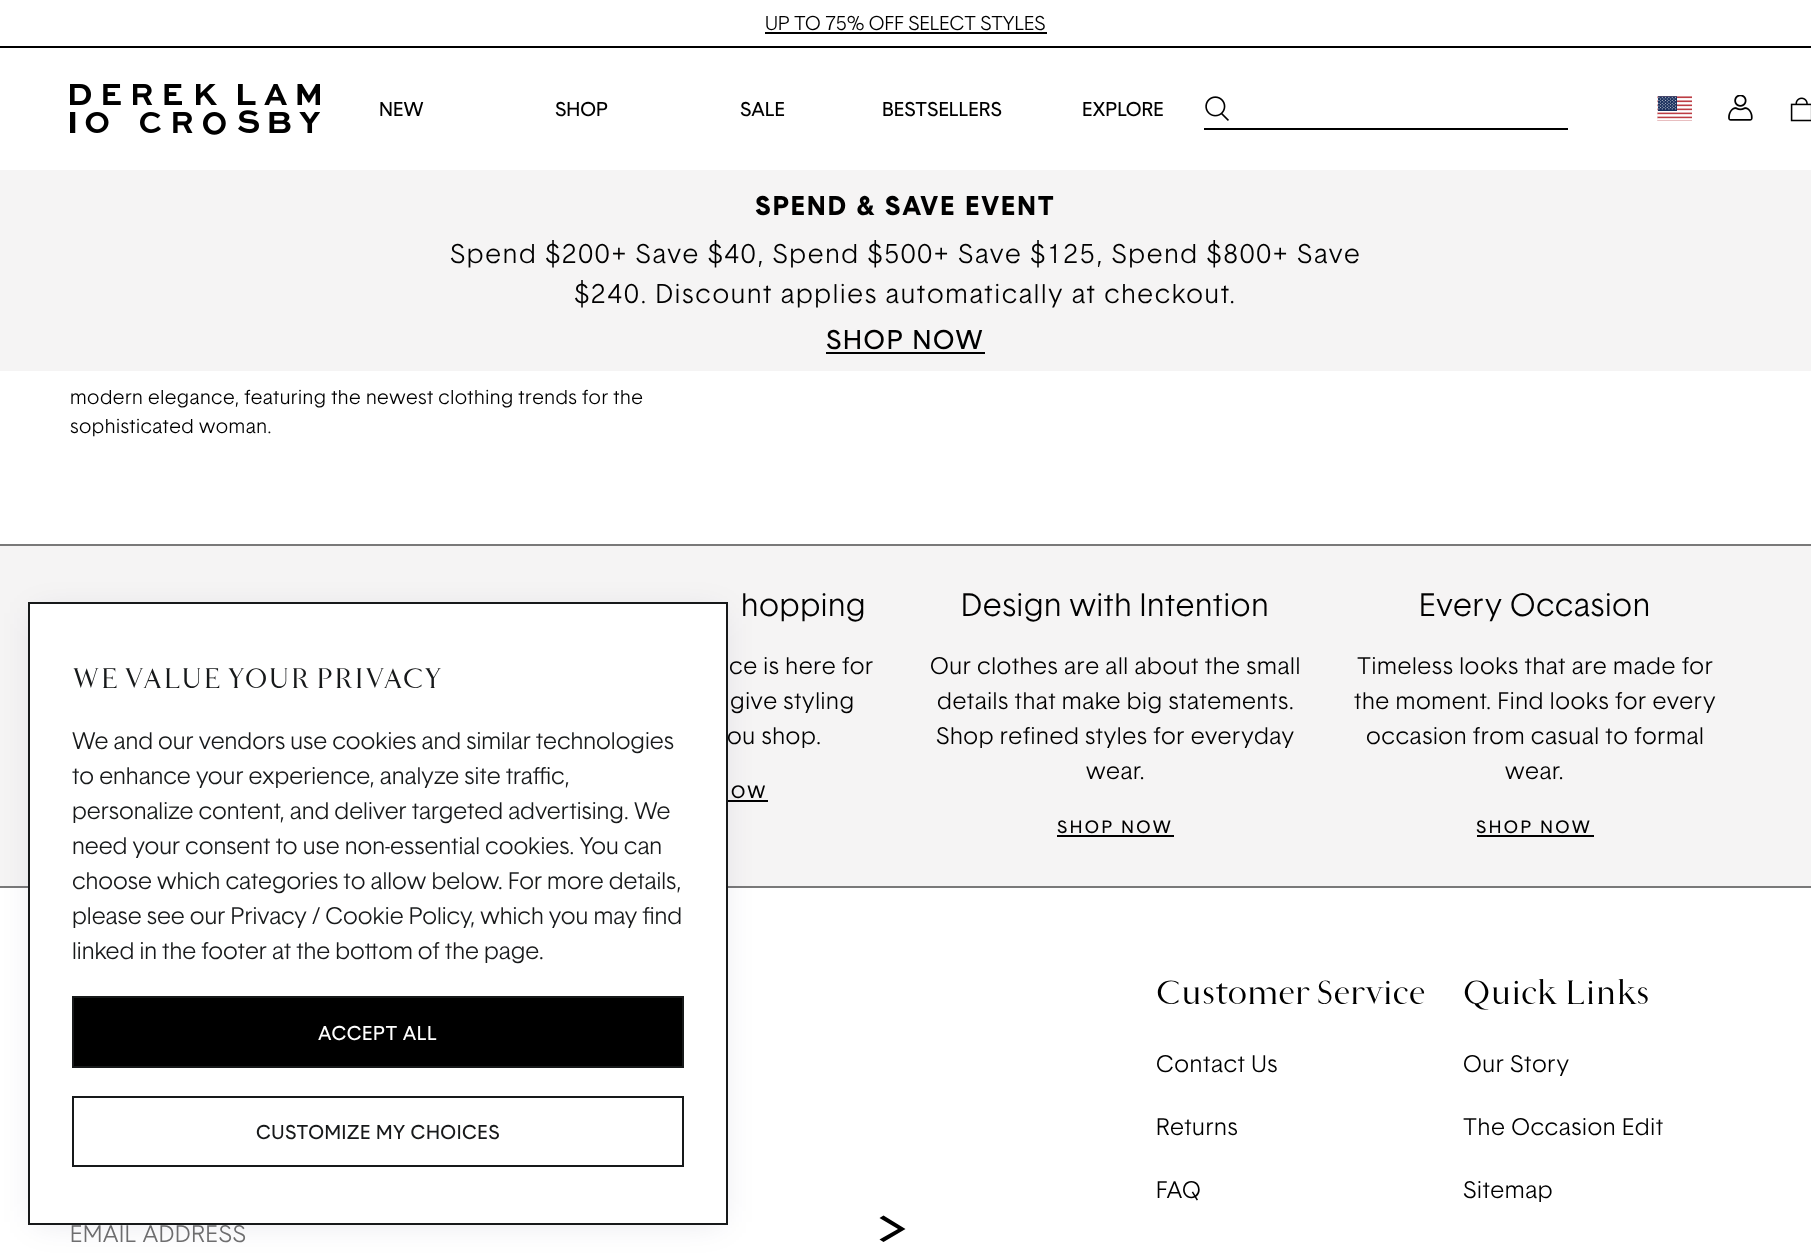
<svg xmlns="http://www.w3.org/2000/svg" width="1811" height="1253" viewBox="0 0 1811 1253">
  <rect width="100%" height="100%" fill="rgb(255,255,255)"/>
  <rect x="0" y="46" width="1811" height="2" fill="rgb(0,0,0)"/>
  <text x="765" y="30" font-family="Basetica" font-size="19.45" font-weight="300" fill="rgb(0,0,0)">UP TO 75% OFF SELECT STYLES</text>
  <rect x="765" y="32" width="282" height="2" fill="rgb(0,0,0)"/>
  <image x="70" y="84" width="250" height="51" href="pic1.png"/>
  <g font-family="Basetica" font-size="19.45" fill="rgb(0,0,0)">
    <text x="379" y="116">NEW</text>
    <text x="555" y="116">SHOP</text>
    <text x="740" y="116">SALE</text>
    <text x="882" y="116">BESTSELLERS</text>
    <text x="1082" y="116">EXPLORE</text>
  </g>
  <image x="1205" y="96" width="24" height="25" href="pic2.png"/>
  <rect x="1204" y="128" width="364" height="2" fill="rgb(0,0,0)"/>
  <rect x="1657" y="96" width="35" height="25" fill="rgb(246,246,246)"/>
  <image x="1657" y="96" width="35" height="25" href="pic3.png"/>
  <image x="1728" y="95" width="25" height="26" href="pic4.png"/>
  <image x="1790" y="97" width="21" height="25" href="pic5.png"/>
  <rect x="0" y="170" width="1811" height="201" fill="rgb(245,244,244)"/>
  <text x="755" y="215" font-family="Basetica" font-size="26.25" font-weight="bold" letter-spacing="1.75" fill="rgb(0,0,0)">SPEND &amp; SAVE EVENT</text>
  <g font-family="Basetica" font-size="26.25" font-weight="300" letter-spacing="1.75" fill="rgb(0,0,0)">
    <text x="450" y="263">Spend $200+ Save $40, Spend $500+ Save $125, Spend $800+ Save</text>
    <text x="574" y="303">$240. Discount applies automatically at checkout.</text>
  </g>
  <text x="826" y="349" font-family="Basetica" font-size="26.25" letter-spacing="1.75" fill="rgb(0,0,0)">SHOP NOW</text>
  <rect x="826" y="352" width="159" height="2" fill="rgb(0,0,0)"/>
  <g font-family="Basetica" font-size="19.45" font-weight="300" letter-spacing="0.5" fill="rgb(0,0,0)">
    <text>
      <tspan x="70" y="404">modern elegance, featuring the newest clothing trends for the</tspan>
      <tspan x="70" y="433">sophisticated woman.</tspan>
    </text>
  </g>
  <rect x="0" y="546" width="1811" height="340" fill="rgb(245,244,244)"/>
  <rect x="0" y="544" width="1811" height="2" fill="rgb(121,121,121)"/>
  <rect x="0" y="886" width="1811" height="2" fill="rgb(121,121,121)"/>
  <text x="741" y="616" font-family="Basetica" font-size="31.5" font-weight="300" letter-spacing="0.6" fill="rgb(0,0,0)">hopping</text>
  <g font-family="Basetica" font-size="23.25" font-weight="300" letter-spacing="0.6" fill="rgb(0,0,0)">
    <text x="729" y="674">ce is here for</text>
    <text x="730" y="709">give styling</text>
    <text x="727" y="744">ou shop.</text>
  </g>
  <text x="731" y="798" font-family="Basetica" font-size="17.5" letter-spacing="2.5" fill="rgb(0,0,0)">OW</text>
  <rect x="728" y="800" width="40" height="2" fill="rgb(0,0,0)"/>
  <text x="961" y="616" font-family="Basetica" font-size="31.5" font-weight="300" letter-spacing="0.6" fill="rgb(0,0,0)">Design with Intention</text>
  <g font-family="Basetica" font-size="23.25" font-weight="300" letter-spacing="0.6" fill="rgb(0,0,0)">
    <text x="930" y="674">Our clothes are all about the small</text>
    <text x="937" y="709">details that make big statements.</text>
    <text x="936" y="744">Shop refined styles for everyday</text>
    <text x="1086" y="779">wear.</text>
  </g>
  <text x="1057" y="833" font-family="Basetica" font-size="17.5" letter-spacing="2.5" fill="rgb(0,0,0)">SHOP NOW</text>
  <rect x="1057" y="835" width="117" height="2" fill="rgb(0,0,0)"/>
  <text x="1419" y="616" font-family="Basetica" font-size="31.5" font-weight="300" letter-spacing="0.6" fill="rgb(0,0,0)">Every Occasion</text>
  <g font-family="Basetica" font-size="23.25" font-weight="300" letter-spacing="0.6" fill="rgb(0,0,0)">
    <text x="1357" y="674">Timeless looks that are made for</text>
    <text x="1354" y="709">the moment. Find looks for every</text>
    <text x="1366" y="744">occasion from casual to formal</text>
    <text x="1505" y="779">wear.</text>
  </g>
  <text x="1476" y="833" font-family="Basetica" font-size="17.5" letter-spacing="2.5" fill="rgb(0,0,0)">SHOP NOW</text>
  <rect x="1477" y="835" width="117" height="2" fill="rgb(0,0,0)"/>
  <text x="1156" y="1004" font-family="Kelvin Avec" font-size="33.5" font-weight="200" fill="rgb(0,0,0)">Customer Service</text>
  <g font-family="Basetica" font-size="23.25" font-weight="300" letter-spacing="0.6" fill="rgb(0,0,0)">
    <text x="1156" y="1072">Contact Us</text>
    <text x="1156" y="1135">Returns</text>
    <text x="1156" y="1198">FAQ</text>
  </g>
  <text x="1463" y="1004" font-family="Kelvin Avec" font-size="33.5" font-weight="200" fill="rgb(0,0,0)">Quick Links</text>
  <g font-family="Basetica" font-size="23.25" font-weight="300" letter-spacing="0.6" fill="rgb(0,0,0)">
    <text x="1463" y="1072">Our Story</text>
    <text x="1463" y="1135">The Occasion Edit</text>
    <text x="1463" y="1198">Sitemap</text>
  </g>
  <text x="70" y="1242" font-family="Basetica" font-size="23.25" font-weight="300" letter-spacing="0.6" fill="rgb(112,112,112)">EMAIL ADDRESS</text>
  <path d="M883.5 1215.5L879.5 1218L898 1229L879.5 1239.5L883.5 1242L905.5 1229Z" fill="rgb(0,0,0)"/>
  <rect x="35" y="613" width="686" height="609" fill="rgba(1,1,63,0.1)" filter="blur(16.5px)"/>
  <rect x="29" y="603" width="698" height="621" fill="rgb(255,255,255)" stroke="rgb(23,25,26)" stroke-width="2"/>
  <text x="72" y="688" font-family="Kelvin Avec" font-size="28" font-weight="200" fill="rgb(23,25,26)">WE VALUE YOUR PRIVACY</text>
  <g font-family="Basetica" font-size="23.25" font-weight="300" fill="rgb(23,25,26)">
    <text>
      <tspan x="72" y="749">We and our vendors use cookies and similar technologies</tspan>
      <tspan x="72" y="784">to enhance your experience, analyze site traffic,</tspan>
      <tspan x="72" y="819">personalize content, and deliver targeted advertising. We</tspan>
      <tspan x="72" y="854">need your consent to use non-essential cookies. You can</tspan>
      <tspan x="72" y="889">choose which categories to allow below. For more details,</tspan>
      <tspan x="72" y="924">please see our Privacy / Cookie Policy, which you may find</tspan>
      <tspan x="72" y="959">linked in the footer at the bottom of the page.</tspan>
    </text>
  </g>
  <rect x="73" y="997" width="610" height="70" fill="rgb(0,0,0)" stroke="rgb(23,25,26)" stroke-width="2"/>
  <text x="318" y="1040" font-family="Basetica" font-size="19.45" letter-spacing="0.5" fill="rgb(255,255,255)">ACCEPT ALL</text>
  <rect x="73" y="1097" width="610" height="69" fill="none" stroke="rgb(23,25,26)" stroke-width="2"/>
  <text x="256" y="1139" font-family="Basetica" font-size="19.45" letter-spacing="0.5" fill="rgb(23,25,26)">CUSTOMIZE MY CHOICES</text>
</svg>
